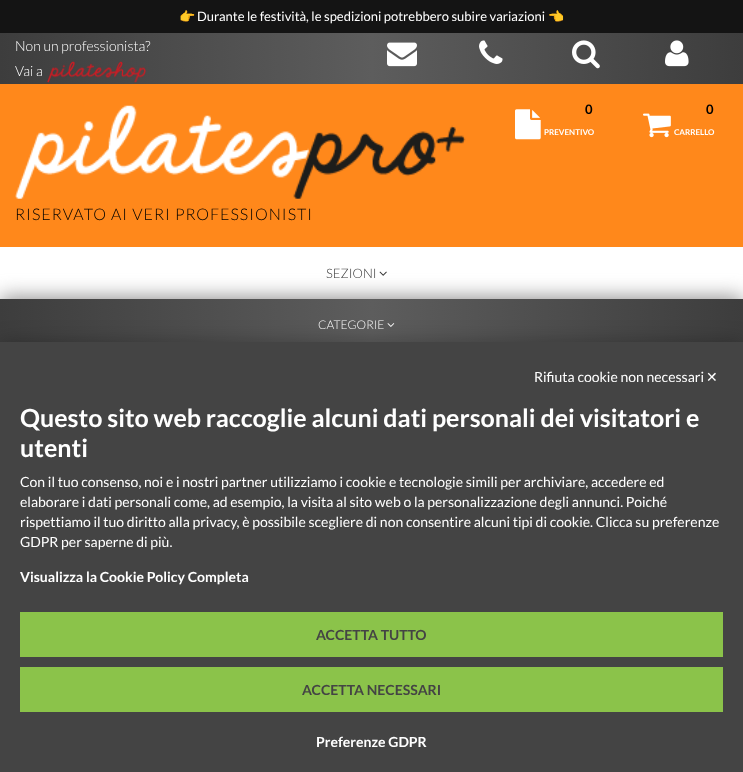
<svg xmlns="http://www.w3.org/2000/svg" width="743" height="772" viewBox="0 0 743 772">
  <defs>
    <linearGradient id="g1" gradientUnits="userSpaceOnUse" x1="0" y1="59" x2="743" y2="58"><stop offset="0" stop-color="rgb(61,61,61)"/><stop offset="0.5" stop-color="rgb(93,93,93)"/><stop offset="1" stop-color="rgb(61,61,61)"/></linearGradient>
    <linearGradient id="g2" gradientUnits="userSpaceOnUse" x1="0" y1="325" x2="743" y2="325"><stop offset="0" stop-color="rgb(61,61,61)"/><stop offset="0.5" stop-color="rgb(93,93,93)"/><stop offset="1" stop-color="rgb(61,61,61)"/></linearGradient>
  </defs>
  <rect width="100%" height="100%" fill="rgb(255,255,255)"/>
  <rect x="0" y="0" width="743" height="33" fill="rgb(20,20,20)"/>
  <text x="179" y="21" font-family="Noto Color Emoji" font-size="13" fill="rgb(255,255,255)">👉</text>
  <text x="197" y="21" font-family="Lato" font-size="13" fill="rgb(255,255,255)">Durante le festività, le spedizioni potrebbero subire variazioni</text>
  <text x="548" y="21" font-family="Noto Color Emoji" font-size="13" fill="rgb(255,255,255)">👈</text>
  <rect x="0" y="33" width="743" height="51" fill="url(#g1)"/>
  <g font-family="Lato" font-size="14" font-weight="300" fill="rgb(255,255,255)">
    <text>
      <tspan x="15" y="51">Non un professionista?</tspan>
      <tspan x="15" y="76">Vai a</tspan>
    </text>
  </g>
  <image x="47" y="61" width="99" height="22" href="pic1.png"/>
  <image x="387" y="42" width="30" height="25" href="pic2.png"/>
  <image x="479" y="40" width="24" height="24" href="pic3.png"/>
  <image x="572" y="40" width="28" height="29" href="pic4.png"/>
  <image x="665" y="40" width="24" height="27" href="pic5.png"/>
  <rect x="0" y="84" width="743" height="163" fill="rgb(255,136,27)"/>
  <image x="515" y="109" width="26" height="31" href="pic6.png"/>
  <text x="585" y="114" font-family="Lato" font-size="13" font-weight="bold" fill="rgb(0,0,0)">0</text>
  <text x="544" y="135" font-family="Lato" font-size="8" font-weight="bold" fill="rgb(255,255,255)">PREVENTIVO</text>
  <text x="706" y="114" font-family="Lato" font-size="13" font-weight="bold" fill="rgb(0,0,0)">0</text>
  <image x="643" y="113" width="28" height="25" href="pic7.png"/>
  <text x="674" y="135" font-family="Lato" font-size="8" font-weight="bold" fill="rgb(255,255,255)">CARRELLO</text>
  <image x="15" y="105" width="451" height="94" href="pic8.png"/>
  <text x="15" y="220" font-family="Lato" font-size="16" font-weight="300" letter-spacing="1" fill="rgb(0,0,0)">RISERVATO AI VERI PROFESSIONISTI</text>
  <rect x="0" y="297" width="743" height="52" fill="rgb(144,143,143)" filter="blur(10px)"/>
  <text x="326" y="278" font-family="Lato" font-size="13" font-weight="300" fill="rgb(51,51,51)">SEZIONI</text>
  <image x="379" y="271" width="8" height="5" href="pic9.png"/>
  <rect x="0" y="299" width="743" height="43" fill="url(#g2)"/>
  <text x="318" y="329" font-family="Lato" font-size="12" font-weight="300" fill="rgb(255,255,255)">CATEGORIE</text>
  <image x="387" y="323" width="8" height="4" href="pic10.png"/>
  <rect x="0" y="342" width="743" height="430" fill="rgba(0,0,0,0.27)" filter="blur(10px)"/>
  <rect x="0" y="342" width="743" height="430" fill="rgb(68,68,68)"/>
  <text x="534" y="382" font-family="Lato" font-size="14" fill="rgb(255,255,255)">Rifiuta cookie non necessari</text>
  <text x="706" y="382" font-family="DejaVu Sans" font-size="14" fill="rgb(255,255,255)">✕</text>
  <g font-family="Lato" font-size="25" font-weight="bold" fill="rgb(255,255,255)">
    <text>
      <tspan x="20" y="427">Questo sito web raccoglie alcuni dati personali dei visitatori e</tspan>
      <tspan x="20" y="457">utenti</tspan>
    </text>
  </g>
  <g font-family="Lato" font-size="14" fill="rgb(255,255,255)">
    <text>
      <tspan x="20" y="487">Con il tuo consenso, noi e i nostri partner utilizziamo i cookie e tecnologie simili per archiviare, accedere ed</tspan>
      <tspan x="20" y="507">elaborare i dati personali come, ad esempio, la visita al sito web o la personalizzazione degli annunci. Poiché</tspan>
      <tspan x="20" y="527">rispettiamo il tuo diritto alla privacy, è possibile scegliere di non consentire alcuni tipi di cookie. Clicca su preferenze</tspan>
      <tspan x="20" y="547">GDPR per saperne di più.</tspan>
    </text>
  </g>
  <text x="20" y="582" font-family="Lato" font-size="14" font-weight="bold" fill="rgb(255,255,255)">Visualizza la Cookie Policy Completa</text>
  <rect x="20" y="612" width="703" height="45" fill="rgb(139,195,74)"/>
  <text x="316" y="640" font-family="Lato" font-size="14" font-weight="bold" fill="rgb(68,68,68)">ACCETTA TUTTO</text>
  <rect x="20" y="667" width="703" height="45" fill="rgb(139,195,74)"/>
  <text x="302" y="695" font-family="Lato" font-size="14" font-weight="bold" fill="rgb(68,68,68)">ACCETTA NECESSARI</text>
  <text x="316" y="747" font-family="Lato" font-size="14" font-weight="bold" fill="rgb(255,255,255)">Preferenze GDPR</text>
</svg>
